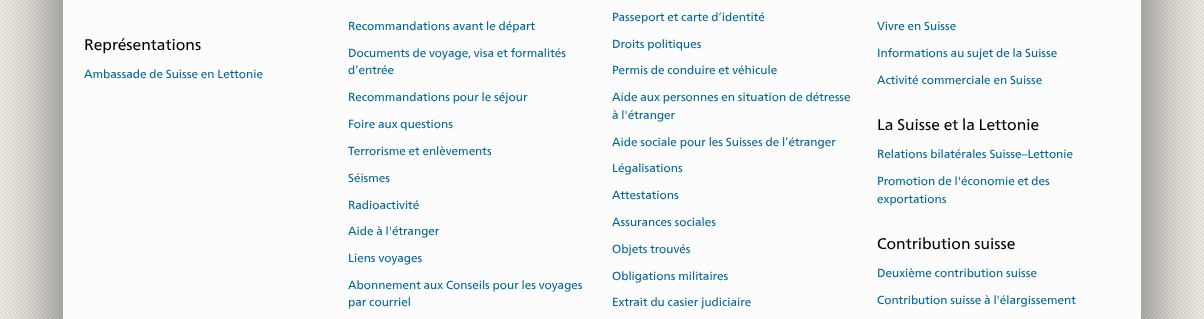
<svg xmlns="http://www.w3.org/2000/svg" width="1204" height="319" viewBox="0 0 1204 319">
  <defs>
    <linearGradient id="g1" gradientUnits="userSpaceOnUse" x1="602" y1="-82" x2="602" y2="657"><stop offset="0" stop-color="rgb(244,244,244)"/><stop offset="0.06" stop-color="rgb(252,252,252)"/></linearGradient>
  </defs>
  <rect width="100%" height="100%" fill="rgb(255,255,255)"/>
  <image x="0" y="0" width="1204" height="319" href="pic1.png"/>
  <rect x="63" y="-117" width="1078" height="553" fill="rgba(0,0,0,0.6)" filter="blur(39px)"/>
  <rect x="63" y="0" width="1078" height="319" fill="url(#g1)"/>
  <text x="84" y="50" font-family="'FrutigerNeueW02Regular'" font-size="15.5" fill="rgb(0,0,0)">Représentations</text>
  <g font-family="'FrutigerNeueW02Regular'" font-size="11.7" fill="rgb(0,102,153)">
    <text x="84" y="78">Ambassade de Suisse en Lettonie</text>
    <text x="348" y="30">Recommandations avant le départ</text>
    <text>
      <tspan x="348" y="57">Documents de voyage, visa et formalités</tspan>
      <tspan x="348" y="74">d’entrée</tspan>
    </text>
    <text x="348" y="101">Recommandations pour le séjour</text>
    <text x="348" y="128">Foire aux questions</text>
    <text x="348" y="155">Terrorisme et enlèvements</text>
    <text x="348" y="182">Séismes</text>
    <text x="348" y="209">Radioactivité</text>
    <text x="348" y="235">Aide à l'étranger</text>
    <text x="348" y="262">Liens voyages</text>
    <text>
      <tspan x="348" y="289">Abonnement aux Conseils pour les voyages</tspan>
      <tspan x="348" y="306">par courriel</tspan>
    </text>
    <text x="612" y="21">Passeport et carte d’identité</text>
    <text x="612" y="48">Droits politiques</text>
    <text x="612" y="74">Permis de conduire et véhicule</text>
    <text>
      <tspan x="612" y="101">Aide aux personnes en situation de détresse</tspan>
      <tspan x="612" y="119">à l'étranger</tspan>
    </text>
    <text x="612" y="146">Aide sociale pour les Suisses de l’étranger</text>
    <text x="612" y="172">Légalisations</text>
    <text x="612" y="199">Attestations</text>
    <text x="612" y="226">Assurances sociales</text>
    <text x="612" y="253">Objets trouvés</text>
    <text x="612" y="280">Obligations militaires</text>
    <text x="612" y="306">Extrait du casier judiciaire</text>
    <text x="877" y="30">Vivre en Suisse</text>
    <text x="877" y="57">Informations au sujet de la Suisse</text>
    <text x="877" y="84">Activité commerciale en Suisse</text>
  </g>
  <text x="877" y="130" font-family="'FrutigerNeueW02Regular'" font-size="15.5" fill="rgb(0,0,0)">La Suisse et la Lettonie</text>
  <g font-family="'FrutigerNeueW02Regular'" font-size="11.7" fill="rgb(0,102,153)">
    <text x="877" y="158">Relations bilatérales Suisse–Lettonie</text>
    <text>
      <tspan x="877" y="185">Promotion de l'économie et des</tspan>
      <tspan x="877" y="203">exportations</tspan>
    </text>
  </g>
  <text x="877" y="249" font-family="'FrutigerNeueW02Regular'" font-size="15.5" fill="rgb(0,0,0)">Contribution suisse</text>
  <g font-family="'FrutigerNeueW02Regular'" font-size="11.7" fill="rgb(0,102,153)">
    <text x="877" y="277">Deuxième contribution suisse</text>
    <text x="877" y="304">Contribution suisse à l'élargissement</text>
  </g>
</svg>
